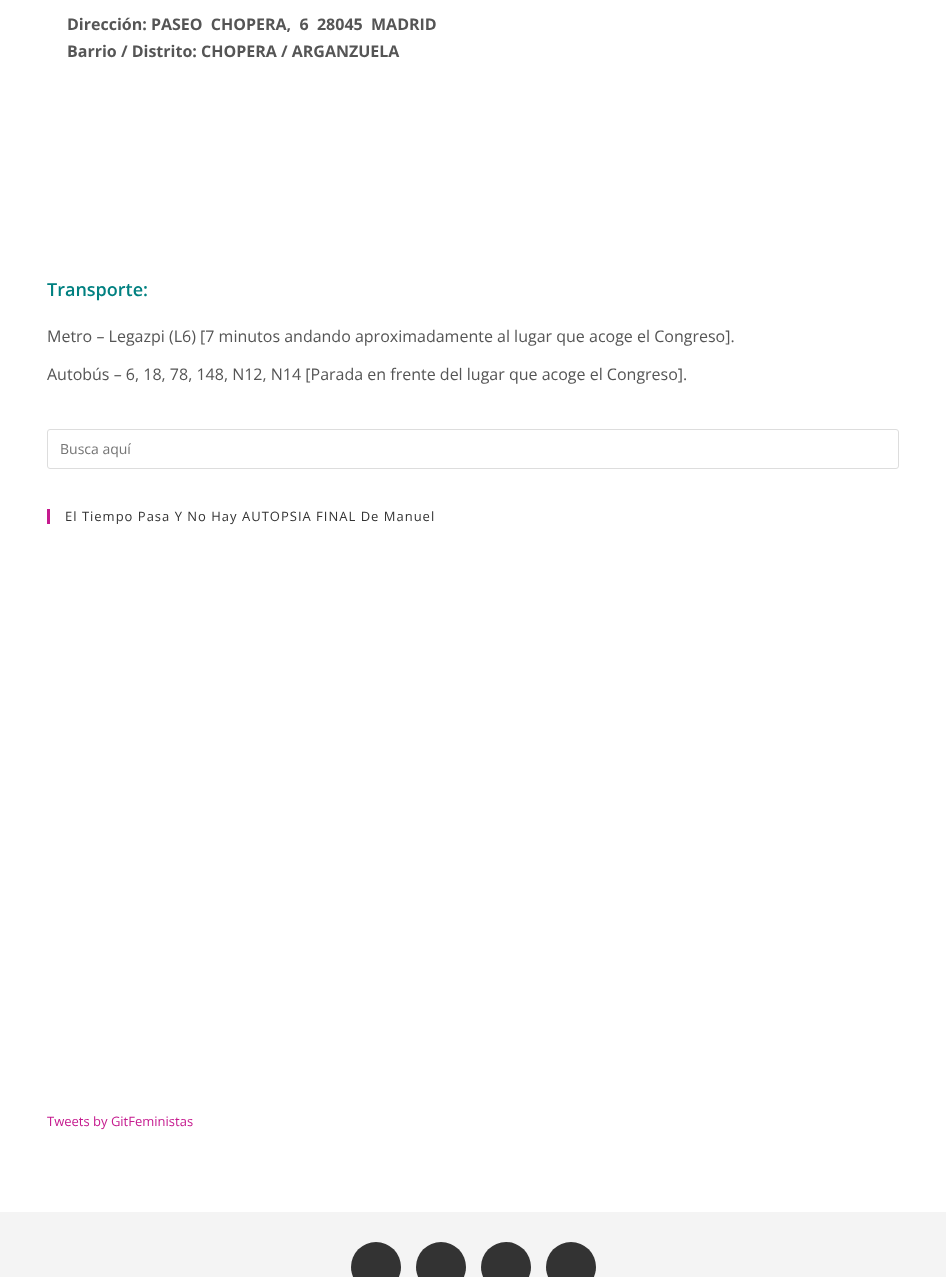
<svg xmlns="http://www.w3.org/2000/svg" width="946" height="1277" viewBox="0 0 946 1277">
  <rect width="100%" height="100%" fill="rgb(255,255,255)"/>
  <g font-family="Open Sans" font-size="16" font-weight="bold" fill="rgb(85,85,85)">
    <text xml:space="preserve"><tspan x="67" y="30">Dirección: PASEO  CHOPERA,  6  28045  MADRID</tspan><tspan x="67" y="57">Barrio / Distrito: CHOPERA / ARGANZUELA</tspan></text>
  </g>
  <text x="47" y="296" font-family="Open Sans" font-size="18" font-weight="600" fill="rgb(0,128,128)">Transporte:</text>
  <g font-family="Open Sans" font-size="16" fill="rgb(85,85,85)">
    <text x="47" y="342">Metro – Legazpi (L6) [7 minutos andando aproximadamente al lugar que acoge el Congreso].</text>
    <text x="47" y="380">Autobús – 6, 18, 78, 148, N12, N14 [Parada en frente del lugar que acoge el Congreso].</text>
  </g>
  <rect x="47.5" y="429.5" width="851" height="39" rx="2.5" fill="none" stroke="rgb(221,221,221)"/>
  <text x="60" y="454" font-family="Open Sans" font-size="14" fill="rgb(117,117,117)">Busca aquí</text>
  <rect x="47" y="509" width="3" height="15" fill="rgb(197,26,142)"/>
  <text x="65" y="521" font-family="Open Sans" font-size="13" letter-spacing="1" fill="rgb(51,51,51)">El Tiempo Pasa Y No Hay AUTOPSIA FINAL De Manuel</text>
  <text x="47" y="1126" font-family="Open Sans" font-size="13" fill="rgb(197,26,142)">Tweets by GitFeministas</text>
  <rect x="0" y="1212" width="946" height="65" fill="rgb(244,244,244)"/>
  <circle cx="376" cy="1267" r="25" fill="rgb(51,51,51)"/>
  <circle cx="441" cy="1267" r="25" fill="rgb(51,51,51)"/>
  <circle cx="506" cy="1267" r="25" fill="rgb(51,51,51)"/>
  <circle cx="571" cy="1267" r="25" fill="rgb(51,51,51)"/>
</svg>
